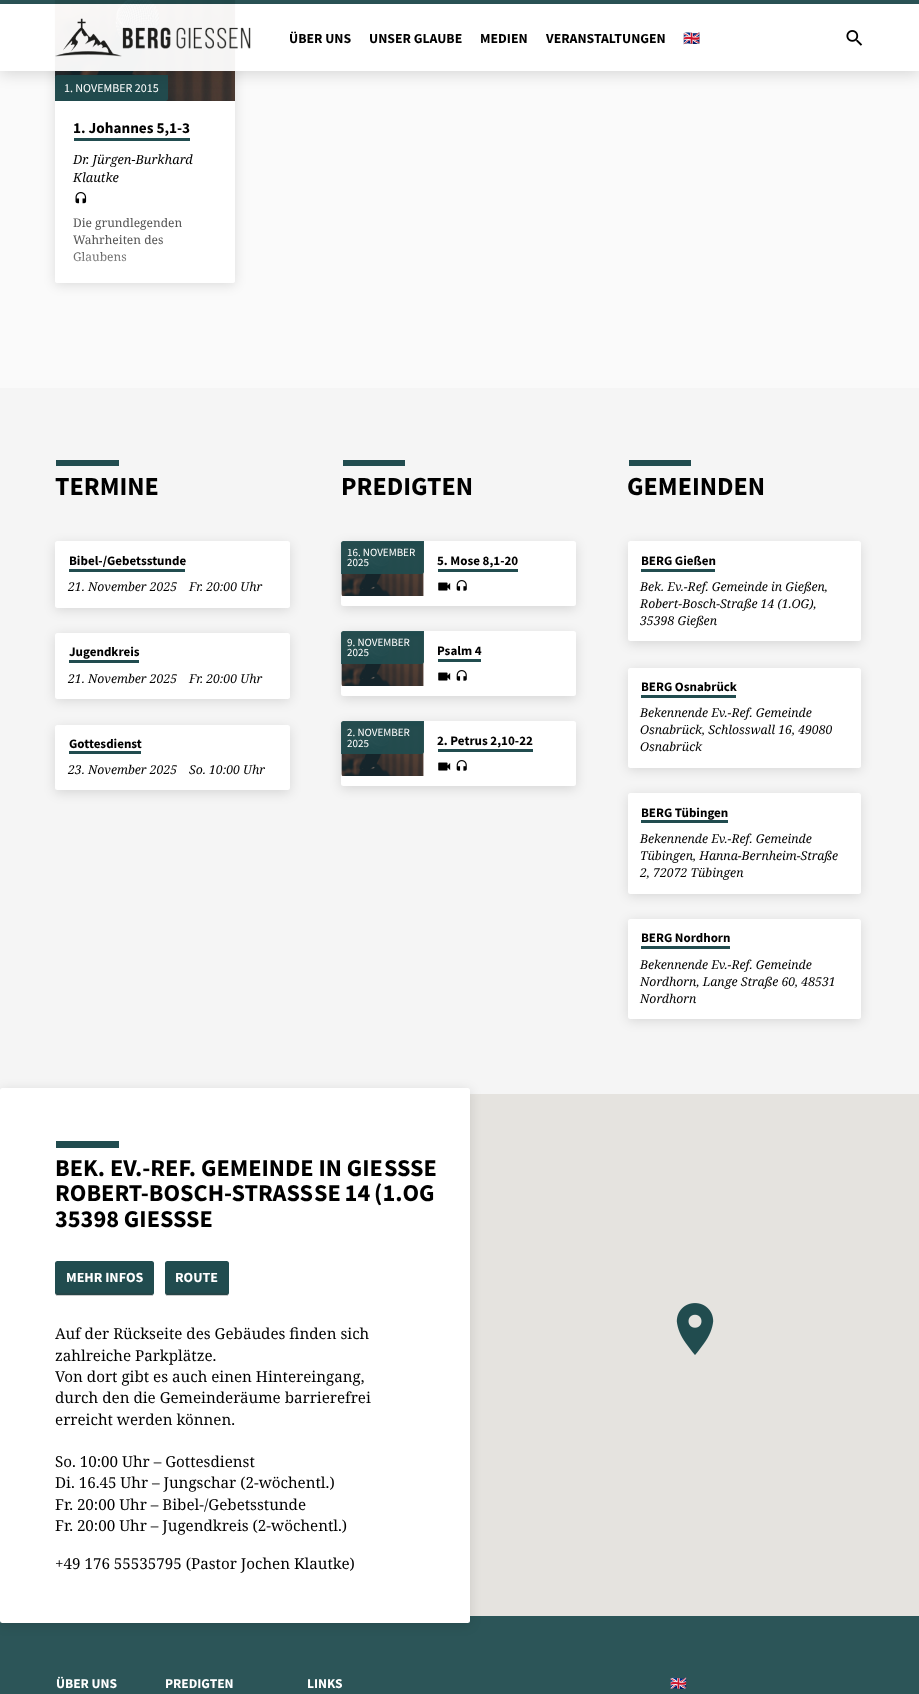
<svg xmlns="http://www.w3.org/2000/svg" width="919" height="1694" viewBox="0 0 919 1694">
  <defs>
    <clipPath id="clip1"><path d="M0 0H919V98H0ZM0 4H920V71H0Z" clip-rule="evenodd"/></clipPath>
    <linearGradient id="g1" gradientUnits="userSpaceOnUse" x1="145" y1="251" x2="145" y2="283"><stop offset="0" stop-color="rgb(255,255,255)" stop-opacity="0"/><stop offset="1" stop-color="rgb(255,255,255)" stop-opacity="0.9"/></linearGradient>
  </defs>
  <rect width="100%" height="100%" fill="rgb(250,250,250)"/>
  <rect x="55" y="-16" width="180" height="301" rx="2.5" fill="rgba(0,0,0,0.12)" filter="blur(6px)"/>
  <rect x="55" y="-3" width="180" height="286" rx="2.5" fill="rgb(255,255,255)"/>
  <image x="55" y="0" width="180" height="101" href="pic3.png"/>
  <rect x="0" y="0" width="919" height="4" fill="rgba(33,76,79,0.95)"/>
  <rect x="0" y="4" width="919" height="67" fill="rgba(255,255,255,0.95)"/>
  <path d="M57.5 75H168V98.5C168 100 167 101 165.5 101H55V77.5C55 76 56 75 57.5 75Z" fill="rgba(33,76,79,0.95)"/>
  <g clip-path="url(#clip1)">
    <rect x="0" y="6" width="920" height="68" fill="rgba(0,0,0,0.14)" filter="blur(7.5px)"/>
  </g>
  <image x="55" y="18" width="196" height="39" href="pic1.png"/>
  <g font-family="Source Sans Pro" font-size="13.75" font-weight="bold" fill="rgb(0,0,0)">
    <text x="289" y="43">ÜBER UNS</text>
    <text x="369" y="43">UNSER GLAUBE</text>
    <text x="480" y="43">MEDIEN</text>
    <text x="546" y="43">VERANSTALTUNGEN</text>
  </g>
  <text x="683" y="43" font-family="Noto Color Emoji" font-size="13.75" font-weight="bold" fill="rgb(0,0,0)">🇬🇧</text>
  <image x="846" y="30" width="17" height="16" href="pic2.png"/>
  <text x="64" y="92" font-family="Source Sans Pro" font-size="12" fill="rgb(255,255,255)">1. NOVEMBER 2015</text>
  <text x="73" y="133" font-family="Source Sans Pro" font-size="15.2" font-weight="bold" fill="rgb(0,0,0)">1. Johannes 5,1-3</text>
  <rect x="74" y="138" width="116" height="3" fill="rgb(33,76,79)"/>
  <g font-family="Noto Serif" font-size="12.75" font-style="italic" fill="rgb(0,0,0)">
    <text>
      <tspan x="73" y="164">Dr. Jürgen-Burkhard</tspan>
      <tspan x="73" y="182">Klautke</tspan>
    </text>
  </g>
  <image x="75" y="192" width="12" height="12" href="pic4.png"/>
  <g font-family="Noto Serif" font-size="12" fill="rgb(85,85,85)">
    <text>
      <tspan x="73" y="227">Die grundlegenden</tspan>
      <tspan x="73" y="244">Wahrheiten des</tspan>
      <tspan x="73" y="261">Glaubens</tspan>
    </text>
  </g>
  <path d="M55 251H235V280.5C235 282 234 283 232.5 283H57.5C56 283 55 282 55 280.5Z" fill="url(#g1)"/>
  <rect x="0" y="388" width="919" height="706" fill="rgb(245,245,245)"/>
  <rect x="56" y="460" width="63" height="6" fill="rgb(33,76,79)"/>
  <text x="55" y="495" font-family="Source Sans Pro" font-size="26" font-weight="bold" fill="rgb(0,0,0)">TERMINE</text>
  <rect x="55" y="544" width="235" height="66" rx="2.5" fill="rgba(0,0,0,0.12)" filter="blur(6px)"/>
  <rect x="55" y="541" width="235" height="67" rx="2.5" fill="rgb(255,255,255)"/>
  <text x="69" y="565" font-family="Source Sans Pro" font-size="13" font-weight="bold" fill="rgb(0,0,0)">Bibel-/Gebetsstunde</text>
  <rect x="69" y="569" width="116" height="3" fill="rgb(33,76,79)"/>
  <g font-family="Noto Serif" font-size="12.25" font-style="italic" fill="rgb(0,0,0)">
    <text x="68" y="591">21. November 2025</text>
    <text x="189" y="591">Fr. 20:00 Uhr</text>
  </g>
  <rect x="55" y="635" width="235" height="66" rx="2.5" fill="rgba(0,0,0,0.12)" filter="blur(6px)"/>
  <rect x="55" y="633" width="235" height="66" rx="2.5" fill="rgb(255,255,255)"/>
  <text x="69" y="656" font-family="Source Sans Pro" font-size="13" font-weight="bold" fill="rgb(0,0,0)">Jugendkreis</text>
  <rect x="69" y="660" width="70" height="3" fill="rgb(33,76,79)"/>
  <g font-family="Noto Serif" font-size="12.25" font-style="italic" fill="rgb(0,0,0)">
    <text x="68" y="683">21. November 2025</text>
    <text x="189" y="683">Fr. 20:00 Uhr</text>
  </g>
  <rect x="55" y="728" width="235" height="65" rx="2.5" fill="rgba(0,0,0,0.12)" filter="blur(6px)"/>
  <rect x="55" y="725" width="235" height="65" rx="2.5" fill="rgb(255,255,255)"/>
  <text x="69" y="748" font-family="Source Sans Pro" font-size="13" font-weight="bold" fill="rgb(0,0,0)">Gottesdienst</text>
  <rect x="69" y="751" width="72" height="3" fill="rgb(33,76,79)"/>
  <g font-family="Noto Serif" font-size="12.25" font-style="italic" fill="rgb(0,0,0)">
    <text x="68" y="774">23. November 2025</text>
    <text x="189" y="774">So. 10:00 Uhr</text>
  </g>
  <rect x="343" y="460" width="62" height="6" fill="rgb(33,76,79)"/>
  <text x="341" y="495" font-family="Source Sans Pro" font-size="26" font-weight="bold" fill="rgb(0,0,0)">PREDIGTEN</text>
  <rect x="341" y="544" width="235" height="65" rx="2.5" fill="rgba(0,0,0,0.12)" filter="blur(6px)"/>
  <rect x="341" y="541" width="235" height="65" rx="2.5" fill="rgb(255,255,255)"/>
  <image x="341" y="541" width="83" height="55" href="pic5.png"/>
  <path d="M343.5 541H424V571.5C424 573 423 574 421.5 574H341V543.5C341 542 342 541 343.5 541Z" fill="rgba(33,76,79,0.95)"/>
  <g font-family="Source Sans Pro" font-size="11" fill="rgb(255,255,255)">
    <text>
      <tspan x="347" y="556">16. NOVEMBER</tspan>
      <tspan x="347" y="566">2025</tspan>
    </text>
  </g>
  <text x="437" y="565" font-family="Source Sans Pro" font-size="13" font-weight="bold" fill="rgb(0,0,0)">5. Mose 8,1-20</text>
  <rect x="438" y="569" width="80" height="3" fill="rgb(33,76,79)"/>
  <image x="438" y="582" width="13" height="9" href="pic6.png"/>
  <image x="456" y="580" width="11" height="11" href="pic7.png"/>
  <rect x="341" y="634" width="235" height="65" rx="2.5" fill="rgba(0,0,0,0.12)" filter="blur(6px)"/>
  <rect x="341" y="631" width="235" height="65" rx="2.5" fill="rgb(255,255,255)"/>
  <image x="341" y="631" width="83" height="55" href="pic5.png"/>
  <path d="M343.5 631H424V661.5C424 663 423 664 421.5 664H341V633.5C341 632 342 631 343.5 631Z" fill="rgba(33,76,79,0.95)"/>
  <g font-family="Source Sans Pro" font-size="11" fill="rgb(255,255,255)">
    <text>
      <tspan x="347" y="646">9. NOVEMBER</tspan>
      <tspan x="347" y="656">2025</tspan>
    </text>
  </g>
  <text x="437" y="655" font-family="Source Sans Pro" font-size="13" font-weight="bold" fill="rgb(0,0,0)">Psalm 4</text>
  <rect x="438" y="659" width="43" height="3" fill="rgb(33,76,79)"/>
  <image x="438" y="672" width="13" height="9" href="pic6.png"/>
  <image x="456" y="670" width="11" height="11" href="pic7.png"/>
  <rect x="341" y="724" width="235" height="65" rx="2.5" fill="rgba(0,0,0,0.12)" filter="blur(6px)"/>
  <rect x="341" y="721" width="235" height="65" rx="2.5" fill="rgb(255,255,255)"/>
  <image x="341" y="721" width="83" height="55" href="pic5.png"/>
  <path d="M343.5 721H424V751.5C424 753 423 754 421.5 754H341V723.5C341 722 342 721 343.5 721Z" fill="rgba(33,76,79,0.95)"/>
  <g font-family="Source Sans Pro" font-size="11" fill="rgb(255,255,255)">
    <text>
      <tspan x="347" y="736">2. NOVEMBER</tspan>
      <tspan x="347" y="747">2025</tspan>
    </text>
  </g>
  <text x="437" y="745" font-family="Source Sans Pro" font-size="13" font-weight="bold" fill="rgb(0,0,0)">2. Petrus 2,10-22</text>
  <rect x="438" y="749" width="95" height="3" fill="rgb(33,76,79)"/>
  <image x="438" y="762" width="13" height="9" href="pic6.png"/>
  <image x="456" y="760" width="11" height="11" href="pic7.png"/>
  <rect x="629" y="460" width="62" height="6" fill="rgb(33,76,79)"/>
  <text x="627" y="495" font-family="Source Sans Pro" font-size="26" font-weight="bold" fill="rgb(0,0,0)">GEMEINDEN</text>
  <rect x="628" y="544" width="233" height="100" rx="2.5" fill="rgba(0,0,0,0.12)" filter="blur(6px)"/>
  <rect x="628" y="541" width="233" height="100" rx="2.5" fill="rgb(255,255,255)"/>
  <text x="641" y="565" font-family="Source Sans Pro" font-size="13" font-weight="bold" fill="rgb(0,0,0)">BERG Gießen</text>
  <rect x="641" y="569" width="74" height="3" fill="rgb(33,76,79)"/>
  <g font-family="Noto Serif" font-size="12.25" font-style="italic" fill="rgb(0,0,0)">
    <text>
      <tspan x="640" y="591">Bek. Ev.-Ref. Gemeinde in Gießen,</tspan>
      <tspan x="640" y="608">Robert-Bosch-Straße 14 (1.OG),</tspan>
      <tspan x="640" y="625">35398 Gießen</tspan>
    </text>
  </g>
  <rect x="628" y="670" width="233" height="100" rx="2.5" fill="rgba(0,0,0,0.12)" filter="blur(6px)"/>
  <rect x="628" y="668" width="233" height="100" rx="2.5" fill="rgb(255,255,255)"/>
  <text x="641" y="691" font-family="Source Sans Pro" font-size="13" font-weight="bold" fill="rgb(0,0,0)">BERG Osnabrück</text>
  <rect x="641" y="695" width="95" height="3" fill="rgb(33,76,79)"/>
  <g font-family="Noto Serif" font-size="12.25" font-style="italic" fill="rgb(0,0,0)">
    <text>
      <tspan x="640" y="717">Bekennende Ev.-Ref. Gemeinde</tspan>
      <tspan x="640" y="734">Osnabrück, Schlosswall 16, 49080</tspan>
      <tspan x="640" y="751">Osnabrück</tspan>
    </text>
  </g>
  <rect x="628" y="795" width="233" height="101" rx="2.5" fill="rgba(0,0,0,0.12)" filter="blur(6px)"/>
  <rect x="628" y="793" width="233" height="101" rx="2.5" fill="rgb(255,255,255)"/>
  <text x="641" y="817" font-family="Source Sans Pro" font-size="13" font-weight="bold" fill="rgb(0,0,0)">BERG Tübingen</text>
  <rect x="641" y="820" width="87" height="3" fill="rgb(33,76,79)"/>
  <g font-family="Noto Serif" font-size="12.25" font-style="italic" fill="rgb(0,0,0)">
    <text>
      <tspan x="640" y="843">Bekennende Ev.-Ref. Gemeinde</tspan>
      <tspan x="640" y="860">Tübingen, Hanna-Bernheim-Straße</tspan>
      <tspan x="640" y="877">2, 72072 Tübingen</tspan>
    </text>
  </g>
  <rect x="628" y="921" width="233" height="100" rx="2.5" fill="rgba(0,0,0,0.12)" filter="blur(6px)"/>
  <rect x="628" y="919" width="233" height="100" rx="2.5" fill="rgb(255,255,255)"/>
  <text x="641" y="942" font-family="Source Sans Pro" font-size="13" font-weight="bold" fill="rgb(0,0,0)">BERG Nordhorn</text>
  <rect x="641" y="946" width="89" height="3" fill="rgb(33,76,79)"/>
  <g font-family="Noto Serif" font-size="12.25" font-style="italic" fill="rgb(0,0,0)">
    <text>
      <tspan x="640" y="969">Bekennende Ev.-Ref. Gemeinde</tspan>
      <tspan x="640" y="986">Nordhorn, Lange Straße 60, 48531</tspan>
      <tspan x="640" y="1003">Nordhorn</tspan>
    </text>
  </g>
  <rect x="470" y="1094" width="449" height="522" fill="rgb(229,227,223)"/>
  <rect x="0" y="1616" width="919" height="78" fill="rgb(44,85,88)"/>
  <rect x="0" y="1090" width="470" height="535" rx="2.5" fill="rgba(0,0,0,0.12)" filter="blur(6px)"/>
  <rect x="0" y="1088" width="470" height="535" rx="2.5" fill="rgb(255,255,255)"/>
  <image x="676" y="1303" width="38" height="52" href="pic8.png"/>
  <rect x="56" y="1141" width="63" height="7" fill="rgb(33,76,79)"/>
  <g font-family="Source Sans Pro" font-size="24.25" font-weight="bold" fill="rgb(0,0,0)">
    <text x="55" y="1176">BEK. EV.-REF. GEMEINDE IN GIE</text>
    <text x="384" y="1176">SSSE</text>
    <text x="55" y="1201">ROBERT-BOSCH-STRASS</text>
    <text x="314" y="1201" word-spacing="-1">SE 14 (1.OG</text>
    <text x="55" y="1227">35398 GIESSSE</text>
  </g>
  <rect x="55" y="1261" width="99" height="34" rx="2.5" fill="rgb(33,76,79)"/>
  <rect x="56" y="1293" width="97" height="3" fill="rgba(50,50,50,0.25)"/>
  <text x="66" y="1282" font-family="Source Sans Pro" font-size="14" font-weight="bold" fill="rgb(255,255,255)">MEHR INFOS</text>
  <rect x="165" y="1261" width="64" height="34" rx="2.5" fill="rgb(33,76,79)"/>
  <rect x="166" y="1293" width="62" height="3" fill="rgba(50,50,50,0.25)"/>
  <text x="175" y="1282" font-family="Source Sans Pro" font-size="14" font-weight="bold" fill="rgb(255,255,255)">ROUTE</text>
  <g font-family="Noto Serif" font-size="15.2" fill="rgb(0,0,0)">
    <text>
      <tspan x="55" y="1339">Auf der Rückseite des Gebäudes finden sich</tspan>
      <tspan x="55" y="1361">zahlreiche Parkplätze.</tspan>
      <tspan x="55" y="1382">Von dort gibt es auch einen Hintereingang,</tspan>
      <tspan x="55" y="1403">durch den die Gemeinderäume barrierefrei</tspan>
      <tspan x="55" y="1425">erreicht werden können.</tspan>
    </text>
    <text>
      <tspan x="55" y="1467">So. 10:00 Uhr – Gottesdienst</tspan>
      <tspan x="55" y="1488">Di. 16.45 Uhr – Jungschar (2-wöchentl.)</tspan>
      <tspan x="55" y="1510">Fr. 20:00 Uhr – Bibel-/Gebetsstunde</tspan>
      <tspan x="55" y="1531">Fr. 20:00 Uhr – Jugendkreis (2-wöchentl.)</tspan>
    </text>
    <text x="55" y="1569">+49 176 55535795 (Pastor Jochen Klautke)</text>
  </g>
  <g font-family="Source Sans Pro" font-size="13.5" font-weight="bold" fill="rgb(255,255,255)">
    <text x="56" y="1688">ÜBER UNS</text>
    <text x="165" y="1688">PREDIGTEN</text>
    <text x="307" y="1688">LINKS</text>
  </g>
  <text x="670" y="1688" font-family="Noto Color Emoji" font-size="13.5" font-weight="bold" fill="rgb(255,255,255)">🇬🇧</text>
</svg>
